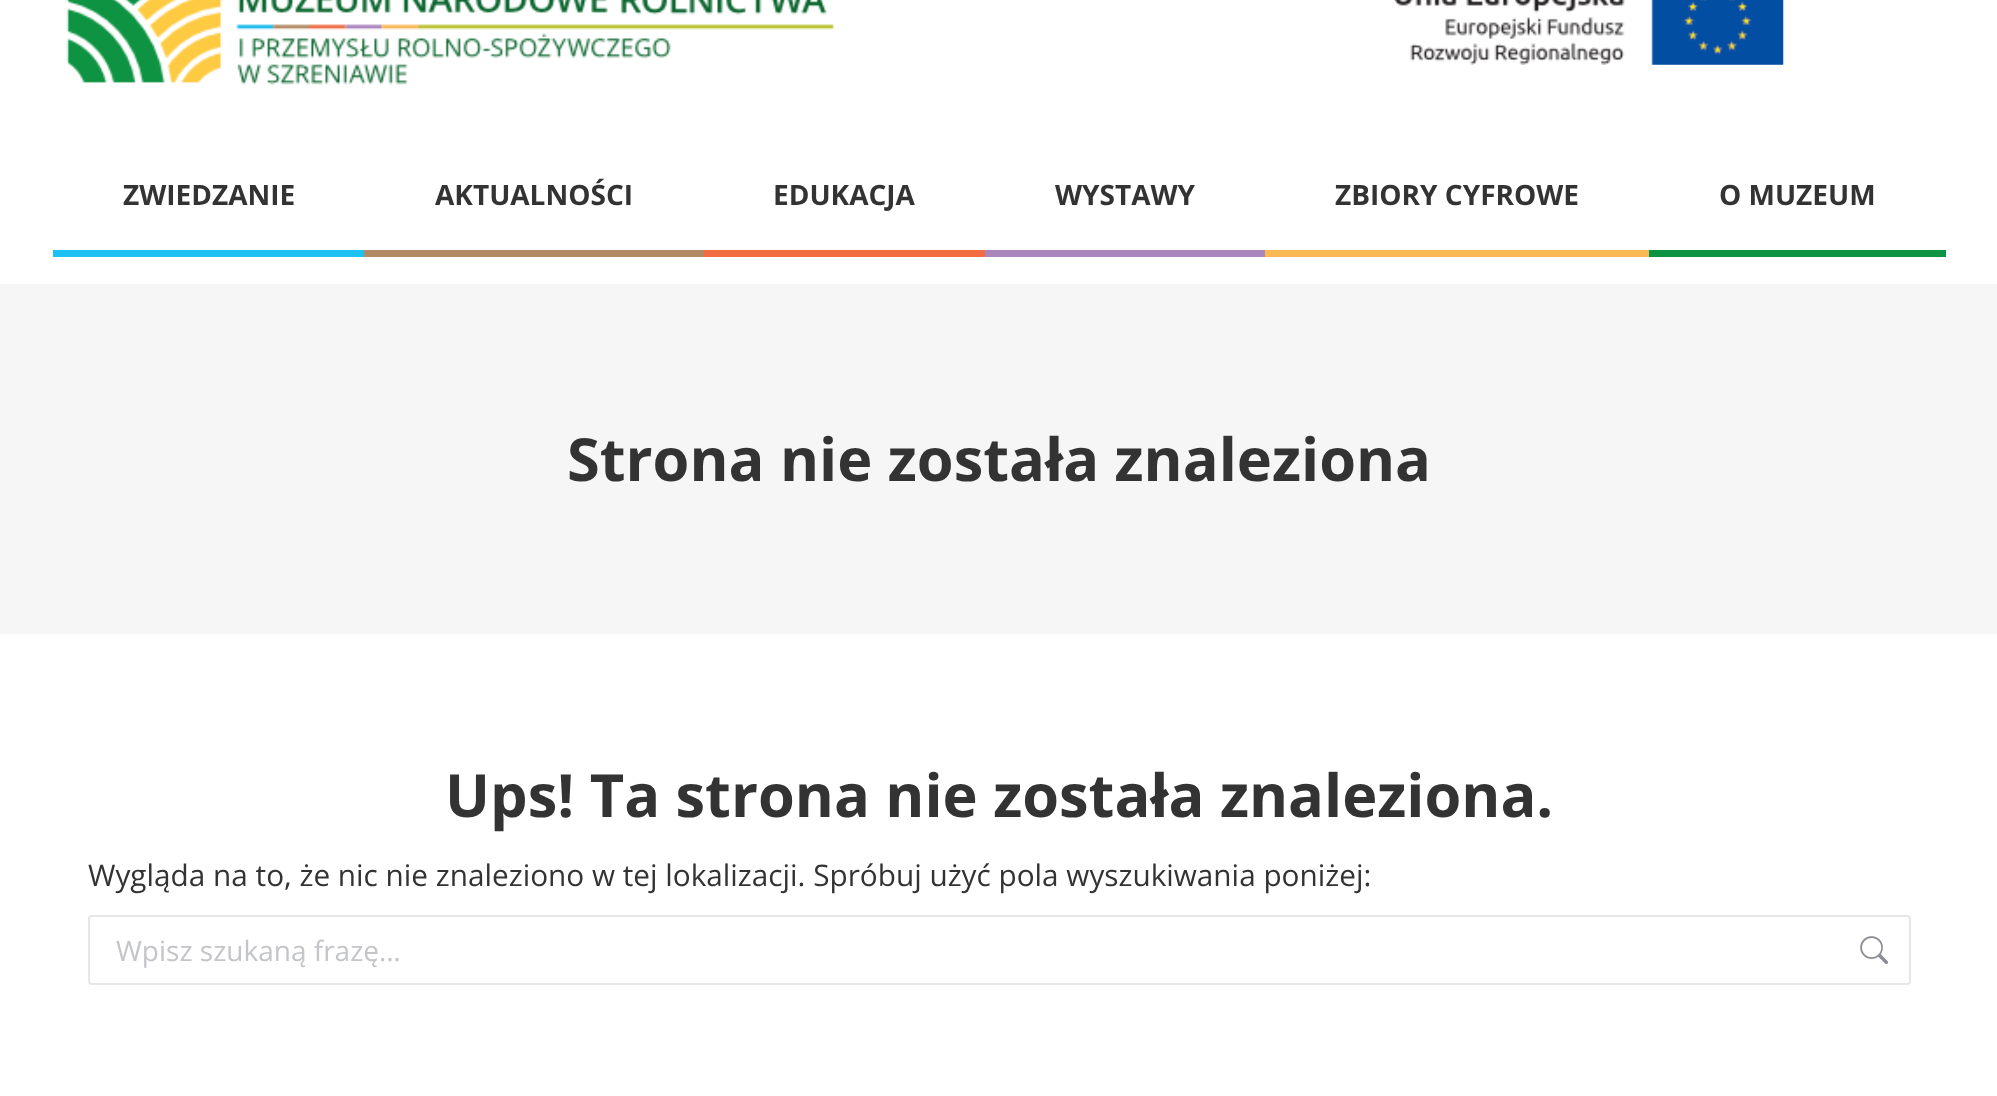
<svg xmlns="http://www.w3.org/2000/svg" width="1997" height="1096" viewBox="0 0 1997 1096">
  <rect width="100%" height="100%" fill="rgb(255,255,255)"/>
  <image x="66" y="0" width="769" height="85" href="pic1.png"/>
  <image x="1394" y="0" width="390" height="65" href="pic2.png"/>
  <rect x="53" y="250" width="311" height="7" fill="rgb(30,193,243)"/>
  <text x="123" y="205" font-family="Open Sans" font-size="28" font-weight="bold" fill="rgb(51,51,51)">ZWIEDZANIE</text>
  <rect x="364" y="250" width="340" height="7" fill="rgb(178,139,100)"/>
  <text x="435" y="205" font-family="Open Sans" font-size="28" font-weight="bold" fill="rgb(51,51,51)">AKTUALNOŚCI</text>
  <rect x="704" y="250" width="281" height="7" fill="rgb(242,110,66)"/>
  <text x="773" y="205" font-family="Open Sans" font-size="28" font-weight="bold" fill="rgb(51,51,51)">EDUKACJA</text>
  <rect x="985" y="250" width="280" height="7" fill="rgb(170,134,189)"/>
  <text x="1055" y="205" font-family="Open Sans" font-size="28" font-weight="bold" fill="rgb(51,51,51)">WYSTAWY</text>
  <rect x="1265" y="250" width="384" height="7" fill="rgb(251,185,86)"/>
  <text x="1335" y="205" font-family="Open Sans" font-size="28" font-weight="bold" fill="rgb(51,51,51)">ZBIORY CYFROWE</text>
  <rect x="1649" y="250" width="297" height="7" fill="rgb(14,147,66)"/>
  <text x="1719" y="205" font-family="Open Sans" font-size="28" font-weight="bold" fill="rgb(51,51,51)">O MUZEUM</text>
  <rect x="0" y="284" width="1997" height="350" fill="rgb(246,246,246)"/>
  <g font-family="Open Sans" font-size="59.5" font-weight="bold" fill="rgb(51,51,51)">
    <text x="567" y="481">Strona nie została znaleziona</text>
    <text x="445" y="817">Ups! Ta strona nie została znaleziona.</text>
  </g>
  <text x="88" y="886" font-family="Open Sans" font-size="29.75" fill="rgb(51,51,51)">Wygląda na to, że nic nie znaleziono w tej lokalizacji. Spróbuj użyć pola wyszukiwania poniżej:</text>
  <rect x="89" y="916" width="1821" height="68" rx="3" fill="none" stroke="rgb(231,231,231)" stroke-width="2"/>
  <text x="116" y="961" font-family="Open Sans" font-size="28" fill="rgb(196,197,201)">Wpisz szukaną frazę…</text>
  <image x="1860" y="936" width="28" height="28" href="pic3.png"/>
</svg>
